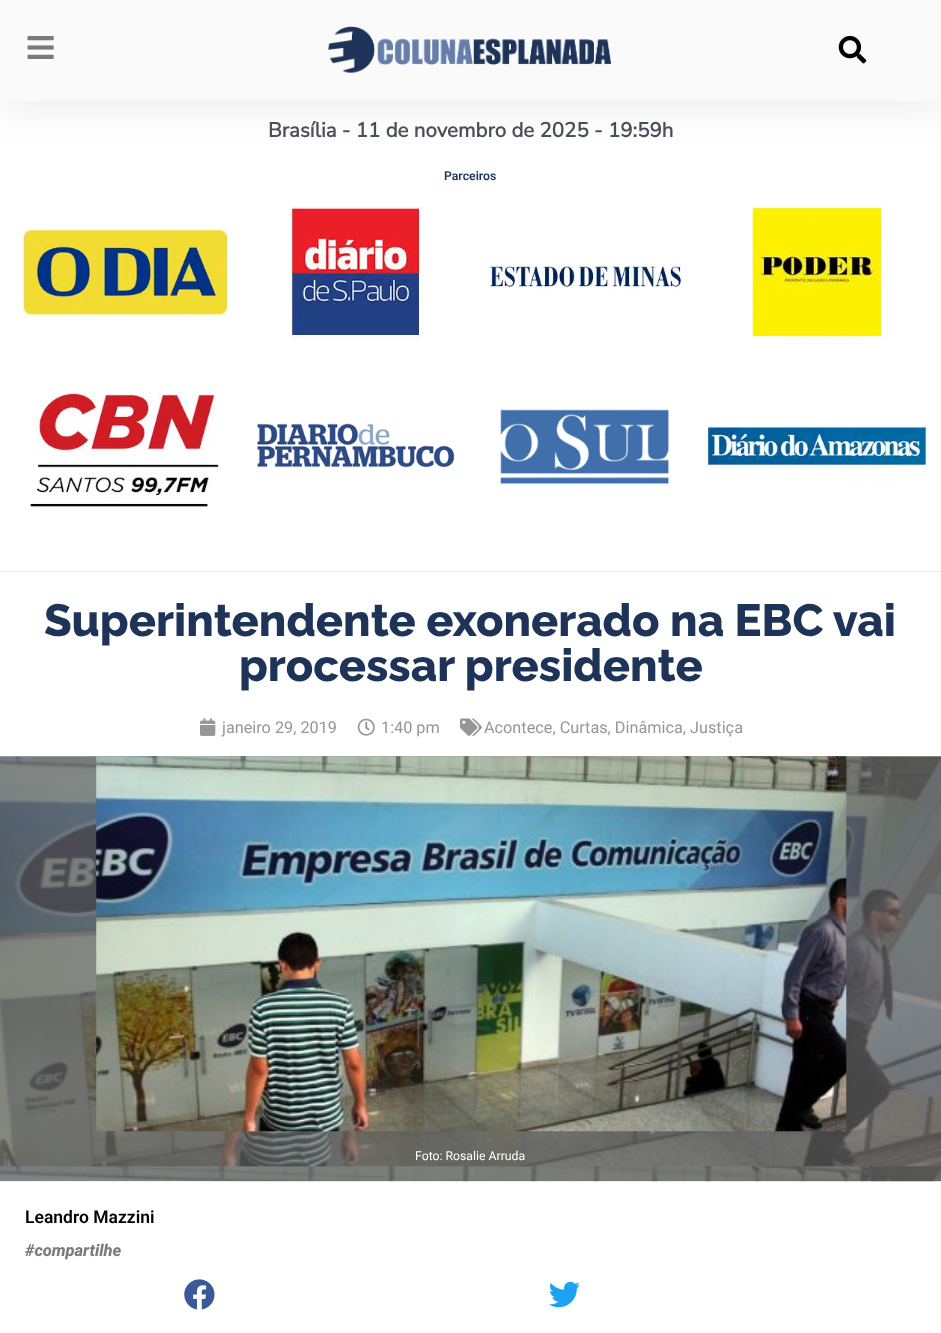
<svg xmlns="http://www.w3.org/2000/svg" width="941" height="1333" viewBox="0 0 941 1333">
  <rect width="100%" height="100%" fill="rgb(255,255,255)"/>
  <rect x="0" y="-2" width="941" height="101" fill="rgba(1,1,1,0.11)" filter="blur(24px)"/>
  <rect x="0" y="0" width="941" height="101" fill="rgb(250,250,250)"/>
  <image x="27" y="36" width="27" height="23" href="pic1.png"/>
  <image x="328" y="26" width="284" height="47" href="pic2.png"/>
  <image x="838" y="35" width="29" height="29" href="pic3.png"/>
  <text x="268" y="137" font-family="Nunito Sans" font-size="20.5" font-weight="bold" fill="rgb(75,79,88)">Brasília - 11 de novembro de 2025 - 19:59h</text>
  <text x="444" y="180" font-family="Roboto" font-size="12.25" font-weight="600" fill="rgb(29,51,88)">Parceiros</text>
  <image x="20" y="227" width="209" height="90" href="pic4.png"/>
  <image x="291" y="203" width="134" height="137" href="pic5.png"/>
  <image x="490" y="263" width="194" height="28" href="pic6.png"/>
  <image x="752" y="205" width="133" height="135" href="pic7.png"/>
  <image x="30" y="389" width="189" height="120" href="pic8.png"/>
  <image x="257" y="423" width="198" height="45" href="pic9.png"/>
  <image x="500" y="409" width="170" height="76" href="pic10.png"/>
  <image x="705" y="425" width="223" height="63" href="pic11.png"/>
  <rect x="0" y="571" width="941" height="1" fill="rgb(239,239,239)"/>
  <g font-family="Raleway" font-size="45.1" font-weight="800" fill="rgb(29,51,88)">
    <text x="44" y="636">Superintendente exonerado na EBC vai</text>
    <text x="239" y="681">processar presidente</text>
  </g>
  <image x="200" y="718" width="16" height="18" href="pic12.png"/>
  <text x="222" y="733" font-family="Roboto" font-size="16.25" fill="rgb(150,150,150)">janeiro 29, 2019</text>
  <image x="357" y="718" width="18" height="18" href="pic13.png"/>
  <text x="381" y="733" font-family="Roboto" font-size="16.25" fill="rgb(150,150,150)">1:40 pm</text>
  <image x="460" y="718" width="22" height="18" href="pic14.png"/>
  <text x="484" y="733" font-family="Roboto" font-size="16.25" fill="rgb(150,150,150)">Acontece, Curtas, Dinâmica, Justiça</text>
  <image x="0" y="756" width="941" height="426" href="pic15.png"/>
  <image x="96" y="756" width="751" height="376" href="pic16.png"/>
  <text x="415" y="1160" font-family="Roboto" font-size="12.25" fill="rgb(255,255,255)">Foto: Rosalie Arruda</text>
  <text x="25" y="1223" font-family="Roboto" font-size="17.5" font-weight="600" fill="rgb(0,0,0)">Leandro Mazzini</text>
  <text x="25" y="1256" font-family="Roboto" font-size="16.5" font-weight="800" font-style="italic" fill="rgb(122,122,122)">#compartilhe</text>
  <image x="184" y="1279" width="31" height="31" href="pic17.png"/>
  <image x="549" y="1281" width="31" height="27" href="pic18.png"/>
</svg>
